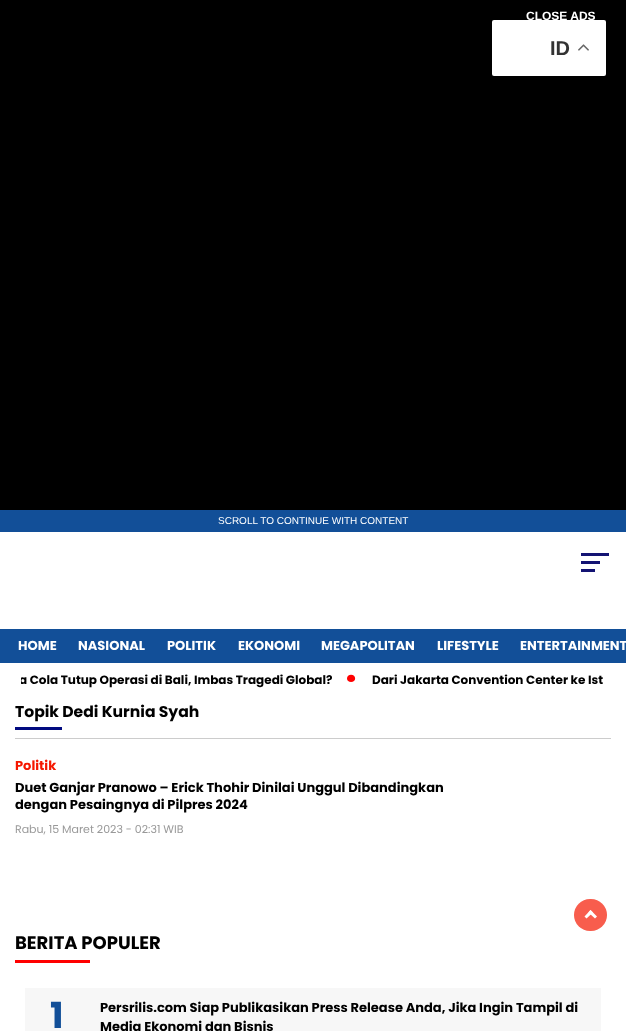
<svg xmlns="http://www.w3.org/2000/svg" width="626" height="1031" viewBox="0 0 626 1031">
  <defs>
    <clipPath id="clip1"><rect x="21" y="663" width="584" height="30"/></clipPath>
  </defs>
  <rect width="100%" height="100%" fill="rgb(255,255,255)"/>
  <rect x="0" y="0" width="626" height="510" fill="rgb(0,0,0)"/>
  <text x="526" y="20" font-family="Liberation Sans" font-size="12" font-weight="bold" fill="rgb(255,255,255)">CLOSE ADS</text>
  <rect x="0" y="510" width="626" height="22" fill="rgb(18,79,152)"/>
  <text x="218" y="524" font-family="Liberation Sans" font-size="10" fill="rgb(255,255,255)">SCROLL TO CONTINUE WITH CONTENT</text>
  <rect x="492" y="20" width="114" height="56" rx="2" fill="rgb(255,255,255)"/>
  <text x="550" y="55" font-family="Liberation Sans" font-size="20" font-weight="bold" fill="rgb(51,51,51)">ID</text>
  <image x="578" y="44" width="11" height="7" href="pic1.png"/>
  <rect x="581" y="553" width="28" height="3" fill="rgb(19,19,115)"/>
  <rect x="581" y="561" width="19" height="3" fill="rgb(19,19,115)"/>
  <rect x="581" y="569" width="14" height="3" fill="rgb(19,19,115)"/>
  <rect x="0" y="629" width="626" height="34" fill="rgb(18,79,152)"/>
  <g font-family="Poppins" font-size="13" font-weight="bold" fill="rgb(255,255,255)">
    <text x="18" y="650">HOME</text>
    <text x="78" y="650">NASIONAL</text>
    <text x="167" y="650">POLITIK</text>
    <text x="238" y="650">EKONOMI</text>
    <text x="321" y="650">MEGAPOLITAN</text>
    <text x="437" y="650">LIFESTYLE</text>
    <text x="520" y="650">ENTERTAINMENT</text>
  </g>
  <g clip-path="url(#clip1)">
    <text x="19" y="684" font-family="Poppins" font-size="12" font-weight="bold" fill="rgb(0,0,0)">a Cola Tutup Operasi di Bali, Imbas Tragedi Global?</text>
  </g>
  <text x="345" y="691" font-family="Poppins" font-size="40" font-weight="bold" fill="rgb(255,0,0)">·</text>
  <text x="372" y="684" font-family="Poppins" font-size="12" font-weight="bold" fill="rgb(0,0,0)">Dari Jakarta Convention Center ke Ist</text>
  <rect x="15" y="738" width="596" height="1" fill="rgb(204,204,204)"/>
  <text x="15" y="717" font-family="Poppins" font-size="15.6" font-weight="bold" fill="rgb(0,0,0)">Topik Dedi Kurnia Syah</text>
  <rect x="15" y="727" width="47" height="3" fill="rgb(1,10,128)"/>
  <text x="15" y="770" font-family="Poppins" font-size="13" font-weight="bold" fill="rgb(245,23,0)">Politik</text>
  <g font-family="Poppins" font-size="13" font-weight="bold" fill="rgb(0,0,0)">
    <text>
      <tspan x="15" y="792">Duet Ganjar Pranowo – Erick Thohir Dinilai Unggul Dibandingkan</tspan>
      <tspan x="15" y="809">dengan Pesaingnya di Pilpres 2024</tspan>
    </text>
  </g>
  <text x="15" y="833" font-family="Poppins" font-size="11" fill="rgb(153,153,153)">Rabu, 15 Maret 2023 - 02:31 WIB</text>
  <text x="15" y="949" font-family="Poppins" font-size="18" font-weight="bold" fill="rgb(0,0,0)">BERITA POPULER</text>
  <rect x="15" y="960" width="75" height="3" fill="rgb(255,0,0)"/>
  <rect x="25" y="988" width="576" height="43" fill="rgb(247,247,247)"/>
  <text x="50" y="1028" font-family="Poppins" font-size="36" font-weight="bold" fill="rgb(18,79,152)">1</text>
  <g font-family="Poppins" font-size="13" font-weight="bold" fill="rgb(0,0,0)">
    <text>
      <tspan x="100" y="1012">Persrilis.com Siap Publikasikan Press Release Anda, Jika Ingin Tampil di</tspan>
      <tspan x="100" y="1031">Media Ekonomi dan Bisnis</tspan>
    </text>
  </g>
  <rect x="574" y="899" width="33" height="32" rx="16" fill="rgb(248,93,77)"/>
  <path d="M586.5 918.5L584.5 916.5L590.5 910L593 912.5Z" fill="rgb(255,255,255)"/>
  <path d="M595 918.5L588.5 912.5L590.5 910L597 916.5Z" fill="rgb(255,255,255)"/>
</svg>
